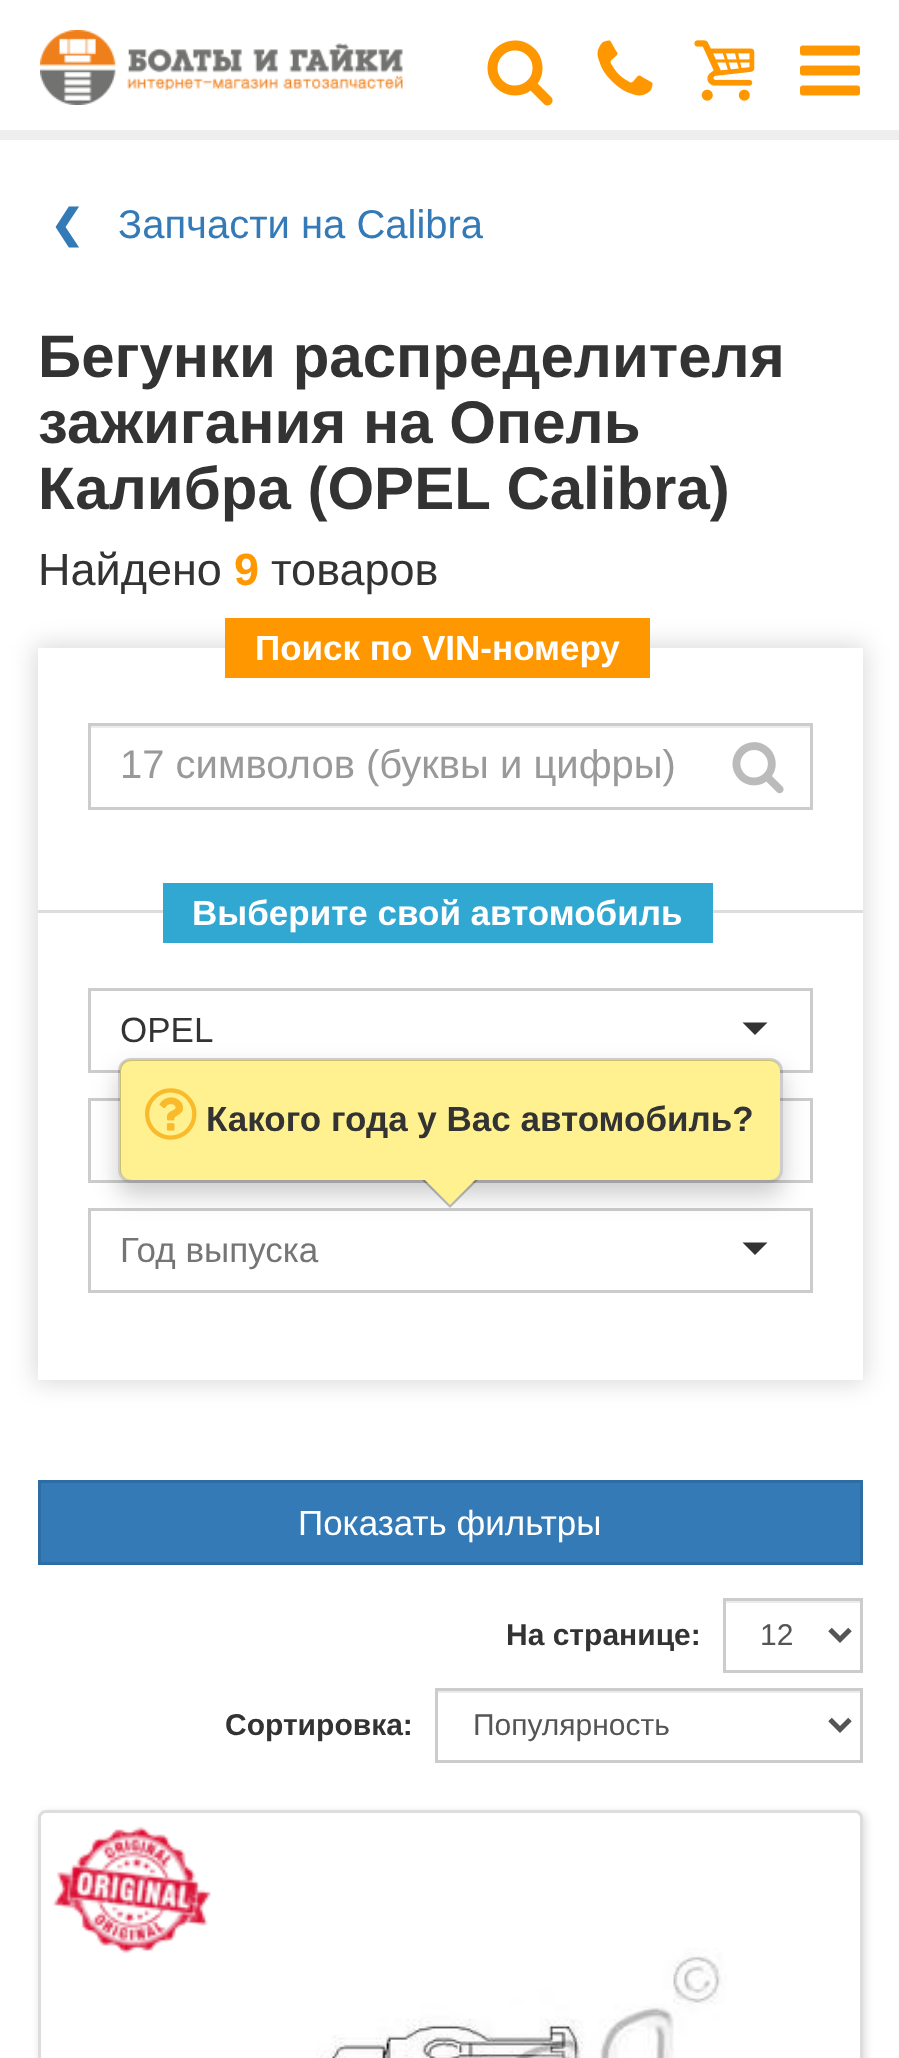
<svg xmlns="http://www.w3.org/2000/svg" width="899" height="2058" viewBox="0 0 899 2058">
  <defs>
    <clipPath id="clip1"><path d="M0 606H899V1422H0ZM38 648H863V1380H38Z" clip-rule="evenodd"/></clipPath>
    <clipPath id="clip2"><path d="M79 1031H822V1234H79ZM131 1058H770C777 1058 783 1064 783 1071V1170C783 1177 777 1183 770 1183H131C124 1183 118 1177 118 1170V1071C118 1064 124 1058 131 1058Z" clip-rule="evenodd"/></clipPath>
  </defs>
  <rect width="100%" height="100%" fill="rgb(255,255,255)"/>
  <rect x="0" y="130" width="899" height="10" fill="rgb(238,238,238)"/>
  <image x="40" y="30" width="363" height="75" href="pic1.png"/>
  <image x="487" y="40" width="66" height="66" href="pic2.png"/>
  <image x="597" y="40" width="56" height="56" href="pic3.png"/>
  <image x="694" y="40" width="61" height="61" href="pic4.png"/>
  <image x="800" y="45" width="60" height="51" href="pic5.png"/>
  <text x="50" y="238" font-family="DejaVu Sans" font-size="40" font-weight="bold" fill="rgb(51,122,183)">❮</text>
  <text x="118" y="238" font-family="Liberation Sans" font-size="40" fill="rgb(51,122,183)">Запчасти на Calibra</text>
  <g font-family="Liberation Sans" font-size="60" font-weight="bold" fill="rgb(51,51,51)">
    <text>
      <tspan x="38" y="377">Бегунки распределителя</tspan>
      <tspan x="38" y="443">зажигания на Опель</tspan>
      <tspan x="38" y="509">Калибра (OPEL Calibra)</tspan>
    </text>
  </g>
  <text x="38" y="585" font-family="Liberation Sans" font-size="45" fill="rgb(51,51,51)">Найдено</text>
  <text x="234" y="585" font-family="Liberation Sans" font-size="45" font-weight="bold" fill="rgb(255,152,0)">9</text>
  <text x="271" y="585" font-family="Liberation Sans" font-size="45" fill="rgb(51,51,51)">товаров</text>
  <g clip-path="url(#clip1)">
    <rect x="35" y="645" width="830" height="738" fill="rgba(0,0,0,0.15)" filter="blur(12.5px)"/>
  </g>
  <rect x="225" y="618" width="425" height="60" fill="rgb(255,152,0)"/>
  <text x="255" y="660" font-family="Liberation Sans" font-size="35" font-weight="bold" fill="rgb(255,255,255)">Поиск по VIN-номеру</text>
  <rect x="90" y="726" width="720" height="2" fill="rgb(236,236,236)"/>
  <rect x="89.5" y="724.5" width="722" height="84" fill="none" stroke="rgb(204,204,204)" stroke-width="3"/>
  <text x="120" y="778" font-family="Liberation Sans" font-size="40" fill="rgb(153,153,153)">17 символов (буквы и цифры)</text>
  <image x="732" y="742" width="52" height="52" href="pic6.png"/>
  <rect x="38" y="910" width="825" height="3" fill="rgb(221,221,221)"/>
  <rect x="163" y="883" width="550" height="60" fill="rgb(49,168,210)"/>
  <text x="192" y="925" font-family="Liberation Sans" font-size="35" font-weight="bold" fill="rgb(255,255,255)">Выберите свой автомобиль</text>
  <rect x="89.5" y="989.5" width="722" height="82" fill="none" stroke="rgb(204,204,204)" stroke-width="3"/>
  <text x="120" y="1042" font-family="Liberation Sans" font-size="35" fill="rgb(51,51,51)">OPEL</text>
  <path d="M742.5 1022.5H767.5L755 1035Z" fill="rgb(51,51,51)"/>
  <rect x="89.5" y="1099.5" width="722" height="82" fill="none" stroke="rgb(204,204,204)" stroke-width="3"/>
  <rect x="89.5" y="1209.5" width="722" height="82" fill="none" stroke="rgb(204,204,204)" stroke-width="3"/>
  <g clip-path="url(#clip2)">
    <rect x="118" y="1070" width="665" height="125" rx="13" fill="rgba(0,0,0,0.2)" filter="blur(12.5px)"/>
  </g>
  <rect x="120" y="1060" width="660" height="120" rx="10" fill="rgb(255,241,143)"/>
  <rect x="119.5" y="1059.5" width="662" height="122" rx="11.5" fill="none" stroke="rgba(0,0,0,0.2)" stroke-width="3"/>
  <image x="145" y="1088" width="52" height="52" href="pic7.png"/>
  <text x="206" y="1131" font-family="Liberation Sans" font-size="35" font-weight="bold" fill="rgb(51,51,51)">Какого года у Вас автомобиль?</text>
  <path d="M422 1180H478L450 1208Z" fill="rgba(0,0,0,0.25)"/>
  <path d="M425 1180H475L450 1205Z" fill="rgb(255,241,143)"/>
  <text x="120" y="1262" font-family="Liberation Sans" font-size="35" fill="rgb(117,117,117)">Год выпуска</text>
  <path d="M742.5 1242.5H767.5L755 1255Z" fill="rgb(51,51,51)"/>
  <rect x="39.5" y="1481.5" width="822" height="82" fill="rgb(51,122,183)" stroke="rgb(46,109,164)" stroke-width="3"/>
  <text x="298" y="1535" font-family="Liberation Sans" font-size="35" fill="rgb(255,255,255)">Показать фильтры</text>
  <text x="506" y="1645" font-family="Liberation Sans" font-size="30" font-weight="bold" fill="rgb(51,51,51)">На странице:</text>
  <rect x="725" y="1601" width="135" height="2" fill="rgb(236,236,236)"/>
  <rect x="724.5" y="1599.5" width="137" height="72" fill="none" stroke="rgb(204,204,204)" stroke-width="3"/>
  <path d="M830 1629.5L840 1639.5L850 1629.5" fill="none" stroke="rgb(85,85,85)" stroke-width="5"/>
  <text x="760" y="1645" font-family="Liberation Sans" font-size="30" fill="rgb(85,85,85)">12</text>
  <text x="225" y="1735" font-family="Liberation Sans" font-size="30" font-weight="bold" fill="rgb(51,51,51)">Сортировка:</text>
  <rect x="438" y="1691" width="422" height="2" fill="rgb(236,236,236)"/>
  <rect x="436.5" y="1689.5" width="425" height="72" fill="none" stroke="rgb(204,204,204)" stroke-width="3"/>
  <path d="M830 1719.5L840 1729.5L850 1719.5" fill="none" stroke="rgb(85,85,85)" stroke-width="5"/>
  <text x="473" y="1735" font-family="Liberation Sans" font-size="30" fill="rgb(85,85,85)">Популярность</text>
  <rect x="40" y="1813" width="825" height="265" rx="8" fill="rgba(0,0,0,0.15)" filter="blur(4px)"/>
  <rect x="39.5" y="1811.5" width="822" height="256" rx="6.5" fill="rgb(255,255,255)" stroke="rgb(221,221,221)" stroke-width="3"/>
  <image x="52" y="1826" width="159" height="128" href="pic8.png"/>
  <image x="316" y="1948" width="411" height="110" href="pic9.png"/>
</svg>
